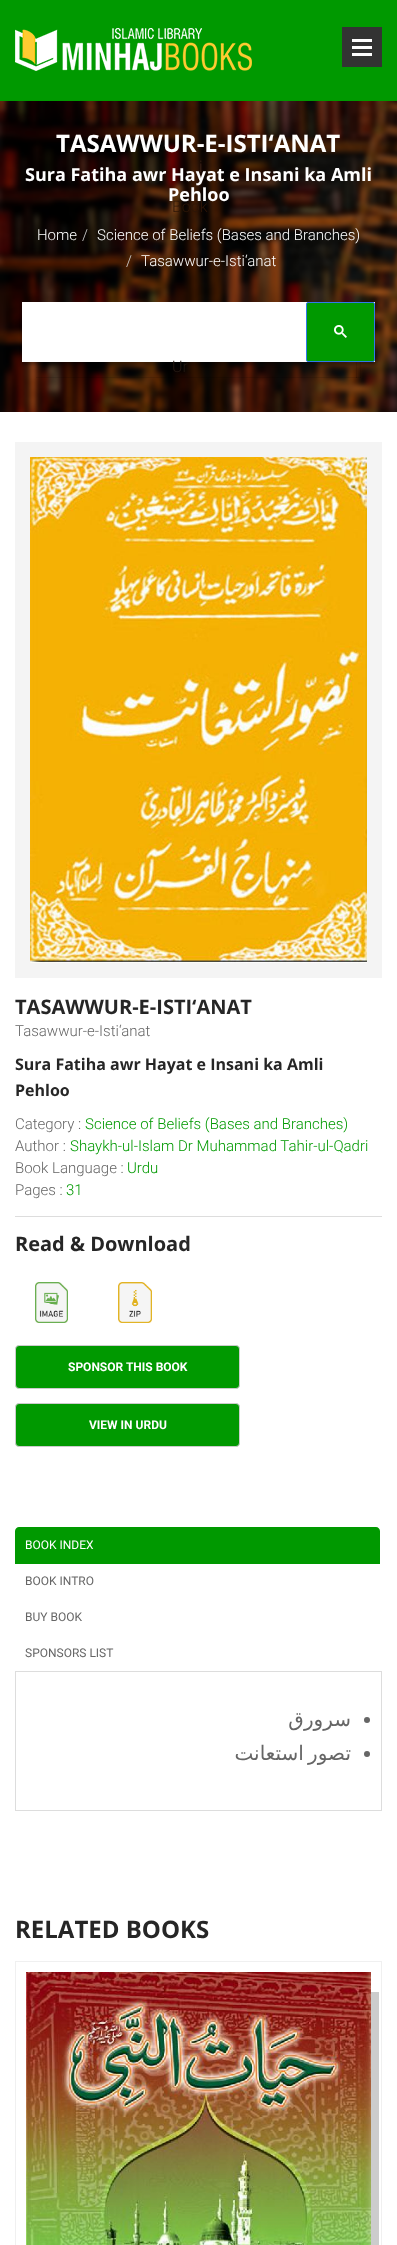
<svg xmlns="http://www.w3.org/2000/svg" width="397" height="2245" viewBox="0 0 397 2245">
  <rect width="100%" height="100%" fill="rgb(255,255,255)"/>
  <image x="0" y="101" width="397" height="311" href="pic1.png"/>
  <text x="56" y="152" font-family="Open Sans" font-size="24" font-weight="bold" fill="rgb(255,255,255)">TASAWWUR-E-ISTI‘ANAT</text>
  <g font-family="Open Sans" font-size="18" font-weight="bold" fill="rgb(255,255,255)">
    <text x="25" y="181">Sura Fatiha awr Hayat e Insani ka Amli</text>
    <text x="168" y="201">Pehloo</text>
  </g>
  <text x="37" y="240" font-family="Roboto" font-size="15" font-weight="300" fill="rgb(255,255,255)">Home</text>
  <text x="82" y="240" font-family="Roboto" font-size="15" font-weight="300" fill="rgb(204,204,204)">/</text>
  <text x="97" y="240" font-family="Roboto" font-size="15" font-weight="300" fill="rgb(255,255,255)">Science of Beliefs (Bases and Branches)</text>
  <text x="126" y="266" font-family="Roboto" font-size="15" font-weight="300" fill="rgb(204,204,204)">/</text>
  <text x="141" y="266" font-family="Roboto" font-size="15" font-weight="300" fill="rgb(255,255,255)">Tasawwur-e-Isti‘anat</text>
  <rect x="22" y="305" width="353" height="60" fill="rgba(0,0,0,0.3)" filter="blur(1.5px)"/>
  <rect x="22" y="302" width="353" height="60" fill="rgb(255,255,255)"/>
  <rect x="360" y="362" width="1" height="16" fill="rgba(0,0,0,0.1)"/>
  <rect x="356" y="377" width="5" height="1" fill="rgba(0,0,0,0.1)"/>
  <rect x="306.5" y="302.5" width="68" height="59" rx="1.5" fill="rgb(0,153,0)" stroke="rgb(48,121,237)"/>
  <image x="334" y="325" width="13" height="13" href="pic2.png"/>
  <rect x="356" y="362" width="1" height="16" fill="rgba(0,0,0,0.1)"/>
  <rect x="36" y="377" width="321" height="1" fill="rgba(0,0,0,0.1)"/>
  <rect x="0" y="0" width="397" height="101" fill="rgb(0,153,0)"/>
  <image x="15" y="28" width="237" height="43" href="pic3.png"/>
  <rect x="342" y="27" width="40" height="40" fill="rgb(51,51,51)"/>
  <rect x="352" y="53" width="20" height="3" fill="rgb(255,255,255)"/>
  <rect x="352" y="46" width="20" height="3" fill="rgb(255,255,255)"/>
  <rect x="352" y="39" width="20" height="3" fill="rgb(255,255,255)"/>
  <text x="199" y="172" font-family="Roboto" font-size="16" font-weight="300" fill="rgb(62,35,25)">i</text>
  <text x="172" y="212" font-family="Roboto" font-size="16" font-weight="300" fill="rgb(45,22,7)">Book</text>
  <text x="172" y="372" font-family="Roboto" font-size="16" font-weight="300" fill="rgb(36,25,18)">Ur</text>
  <rect x="15" y="442" width="367" height="536" fill="rgb(244,244,244)"/>
  <image x="30" y="457" width="337" height="506" href="pic4.png"/>
  <text x="15" y="1014" font-family="Open Sans" font-size="20" font-weight="bold" fill="rgb(38,38,38)">TASAWWUR-E-ISTI‘ANAT</text>
  <text x="15" y="1036" font-family="Roboto" font-size="15" font-weight="300" fill="rgb(102,102,102)">Tasawwur-e-Isti‘anat</text>
  <g font-family="Open Sans" font-size="16" font-weight="bold" fill="rgb(38,38,38)">
    <text>
      <tspan x="15" y="1070">Sura Fatiha awr Hayat e Insani ka Amli</tspan>
      <tspan x="15" y="1096">Pehloo</tspan>
    </text>
  </g>
  <rect x="15" y="1216" width="367" height="1" fill="rgb(221,221,221)"/>
  <text x="15" y="1129" font-family="Roboto" font-size="15" font-weight="300" fill="rgb(102,102,102)">Category :</text>
  <text x="85" y="1129" font-family="Roboto" font-size="15" font-weight="300" fill="rgb(0,153,0)">Science of Beliefs (Bases and Branches)</text>
  <text x="15" y="1151" font-family="Roboto" font-size="15" font-weight="300" fill="rgb(102,102,102)">Author :</text>
  <text x="70" y="1151" font-family="Roboto" font-size="15" font-weight="300" fill="rgb(0,153,0)">Shaykh-ul-Islam Dr Muhammad Tahir-ul-Qadri</text>
  <text x="15" y="1173" font-family="Roboto" font-size="15" font-weight="300" fill="rgb(102,102,102)">Book Language :</text>
  <text x="127" y="1173" font-family="Roboto" font-size="15" font-weight="300" fill="rgb(0,153,0)">Urdu</text>
  <text x="15" y="1195" font-family="Roboto" font-size="15" font-weight="300" fill="rgb(102,102,102)">Pages :</text>
  <text x="66" y="1195" font-family="Roboto" font-size="15" font-weight="300" fill="rgb(0,153,0)">31</text>
  <text x="15" y="1251" font-family="Open Sans" font-size="20" font-weight="bold" fill="rgb(38,38,38)">Read &amp; Download</text>
  <image x="35" y="1282" width="33" height="41" href="pic5.png"/>
  <image x="118" y="1282" width="34" height="41" href="pic6.png"/>
  <rect x="15.5" y="1345.5" width="224" height="43" rx="3.5" fill="rgb(0,153,0)" stroke="rgb(204,204,204)"/>
  <text x="68" y="1371" font-family="Roboto" font-size="12" font-weight="bold" fill="rgb(255,255,255)">SPONSOR THIS BOOK</text>
  <rect x="15.5" y="1403.5" width="224" height="43" rx="3.5" fill="rgb(0,153,0)" stroke="rgb(204,204,204)"/>
  <text x="89" y="1429" font-family="Roboto" font-size="12" font-weight="bold" fill="rgb(255,255,255)">VIEW IN URDU</text>
  <rect x="15" y="1671" width="367" height="1" fill="rgb(221,221,221)"/>
  <path d="M19 1527H376C378 1527 380 1529 380 1531V1564H15V1531C15 1529 17 1527 19 1527Z" fill="rgb(0,153,0)"/>
  <text x="25" y="1549" font-family="Roboto" font-size="12" fill="rgb(255,255,255)">BOOK INDEX</text>
  <g font-family="Roboto" font-size="12" fill="rgb(102,102,102)">
    <text x="25" y="1585">BOOK INTRO</text>
    <text x="25" y="1621">BUY BOOK</text>
    <text x="25" y="1657">SPONSORS LIST</text>
  </g>
  <rect x="381" y="1672" width="1" height="139" fill="rgb(221,221,221)"/>
  <rect x="15" y="1810" width="367" height="1" fill="rgb(221,221,221)"/>
  <rect x="15" y="1672" width="1" height="139" fill="rgb(221,221,221)"/>
  <text x="351" y="1726" font-family="DejaVu Sans" font-size="20" direction="rtl" fill="rgb(102,102,102)">سرورق</text>
  <circle cx="367" cy="1720" r="3" fill="rgb(102,102,102)"/>
  <text x="351" y="1760" word-spacing="-2" font-family="DejaVu Sans" font-size="20" direction="rtl" fill="rgb(102,102,102)">تصور استعانت</text>
  <circle cx="367" cy="1754" r="3" fill="rgb(102,102,102)"/>
  <text x="15" y="1938" font-family="Open Sans" font-size="24" font-weight="bold" fill="rgb(38,38,38)">RELATED BOOKS</text>
  <rect x="15.5" y="1961.5" width="366" height="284" fill="none" stroke="rgb(240,240,240)"/>
  <rect x="371" y="1992" width="8" height="253" fill="rgb(204,204,204)"/>
  <image x="26" y="1972" width="345" height="273" href="pic7.png"/>
</svg>
